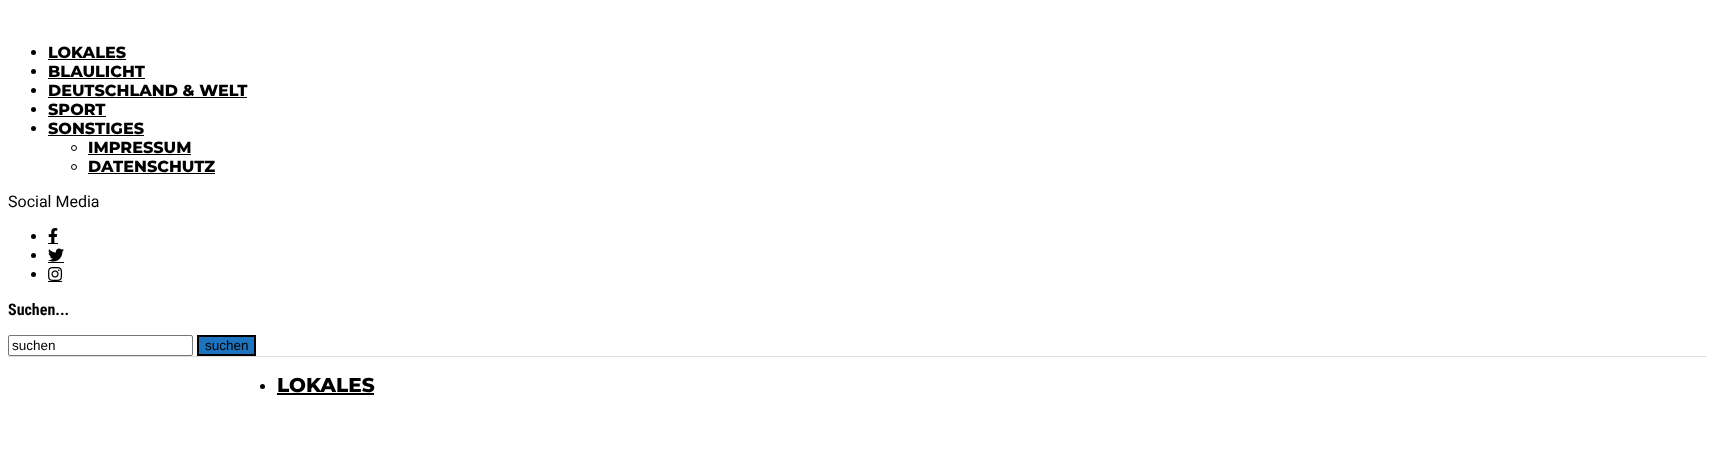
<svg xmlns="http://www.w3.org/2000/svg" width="1714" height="459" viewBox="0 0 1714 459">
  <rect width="100%" height="100%" fill="rgb(255,255,255)"/>
  <circle cx="33.5" cy="52.5" r="2.5" fill="rgb(0,0,0)"/>
  <text x="48" y="58" font-family="Montserrat" font-size="16" font-weight="800" fill="rgb(0,0,0)">LOKALES</text>
  <rect x="48" y="59" width="78" height="1" fill="rgb(0,0,0)"/>
  <circle cx="33.5" cy="71.5" r="2.5" fill="rgb(0,0,0)"/>
  <text x="48" y="77" font-family="Montserrat" font-size="16" font-weight="800" fill="rgb(0,0,0)">BLAULICHT</text>
  <rect x="48" y="78" width="97" height="1" fill="rgb(0,0,0)"/>
  <circle cx="33.5" cy="90.5" r="2.5" fill="rgb(0,0,0)"/>
  <text x="48" y="96" font-family="Montserrat" font-size="16" font-weight="800" fill="rgb(0,0,0)">DEUTSCHLAND &amp; WELT</text>
  <rect x="48" y="97" width="199" height="1" fill="rgb(0,0,0)"/>
  <circle cx="33.5" cy="109.5" r="2.5" fill="rgb(0,0,0)"/>
  <text x="48" y="115" font-family="Montserrat" font-size="16" font-weight="800" fill="rgb(0,0,0)">SPORT</text>
  <rect x="48" y="116" width="58" height="1" fill="rgb(0,0,0)"/>
  <circle cx="33.5" cy="128.5" r="2.5" fill="rgb(0,0,0)"/>
  <text x="48" y="134" font-family="Montserrat" font-size="16" font-weight="800" fill="rgb(0,0,0)">SONSTIGES</text>
  <rect x="48" y="135" width="96" height="1" fill="rgb(0,0,0)"/>
  <circle cx="74" cy="148" r="2.5" fill="none" stroke="rgb(0,0,0)"/>
  <text x="88" y="153" font-family="Montserrat" font-size="16" font-weight="800" fill="rgb(0,0,0)">IMPRESSUM</text>
  <rect x="88" y="154" width="103" height="1" fill="rgb(0,0,0)"/>
  <circle cx="74" cy="167" r="2.5" fill="none" stroke="rgb(0,0,0)"/>
  <text x="88" y="172" font-family="Montserrat" font-size="16" font-weight="800" fill="rgb(0,0,0)">DATENSCHUTZ</text>
  <rect x="88" y="173" width="127" height="1" fill="rgb(0,0,0)"/>
  <text x="8" y="207" font-family="Roboto" font-size="16" fill="rgb(0,0,0)">Social Media</text>
  <circle cx="33.5" cy="236.5" r="2.5" fill="rgb(0,0,0)"/>
  <image x="48" y="228" width="10" height="15" href="pic1.png"/>
  <rect x="48" y="243" width="10" height="1" fill="rgb(0,0,0)"/>
  <circle cx="33.5" cy="255.5" r="2.5" fill="rgb(0,0,0)"/>
  <image x="48" y="248" width="16" height="14" href="pic2.png"/>
  <rect x="48" y="262" width="16" height="1" fill="rgb(0,0,0)"/>
  <circle cx="33.5" cy="274.5" r="2.5" fill="rgb(0,0,0)"/>
  <image x="48" y="267" width="15" height="14" href="pic3.png"/>
  <rect x="48" y="281" width="14" height="1" fill="rgb(0,0,0)"/>
  <text x="8" y="315" font-family="Roboto Condensed" font-size="16" font-weight="bold" fill="rgb(0,0,0)">Suchen...</text>
  <rect x="8.5" y="335.5" width="184" height="20" rx="1.5" fill="none" stroke="rgb(118,118,118)"/>
  <text x="12" y="350" font-family="Liberation Sans" font-size="13.5" fill="rgb(0,0,0)">suchen</text>
  <rect x="198" y="336" width="57" height="19" fill="rgb(30,115,190)" stroke="rgb(0,0,0)" stroke-width="2"/>
  <text x="205" y="350" font-family="Liberation Sans" font-size="13.5" fill="rgb(0,0,0)">suchen</text>
  <rect x="8" y="356" width="1698" height="1" fill="rgb(221,221,221)"/>
  <circle cx="262.5" cy="386.5" r="2.5" fill="rgb(0,0,0)"/>
  <text x="277" y="392" font-family="Montserrat" font-size="20" font-weight="800" fill="rgb(0,0,0)">LOKALES</text>
  <rect x="277" y="393" width="97" height="2" fill="rgb(0,0,0)"/>
</svg>
